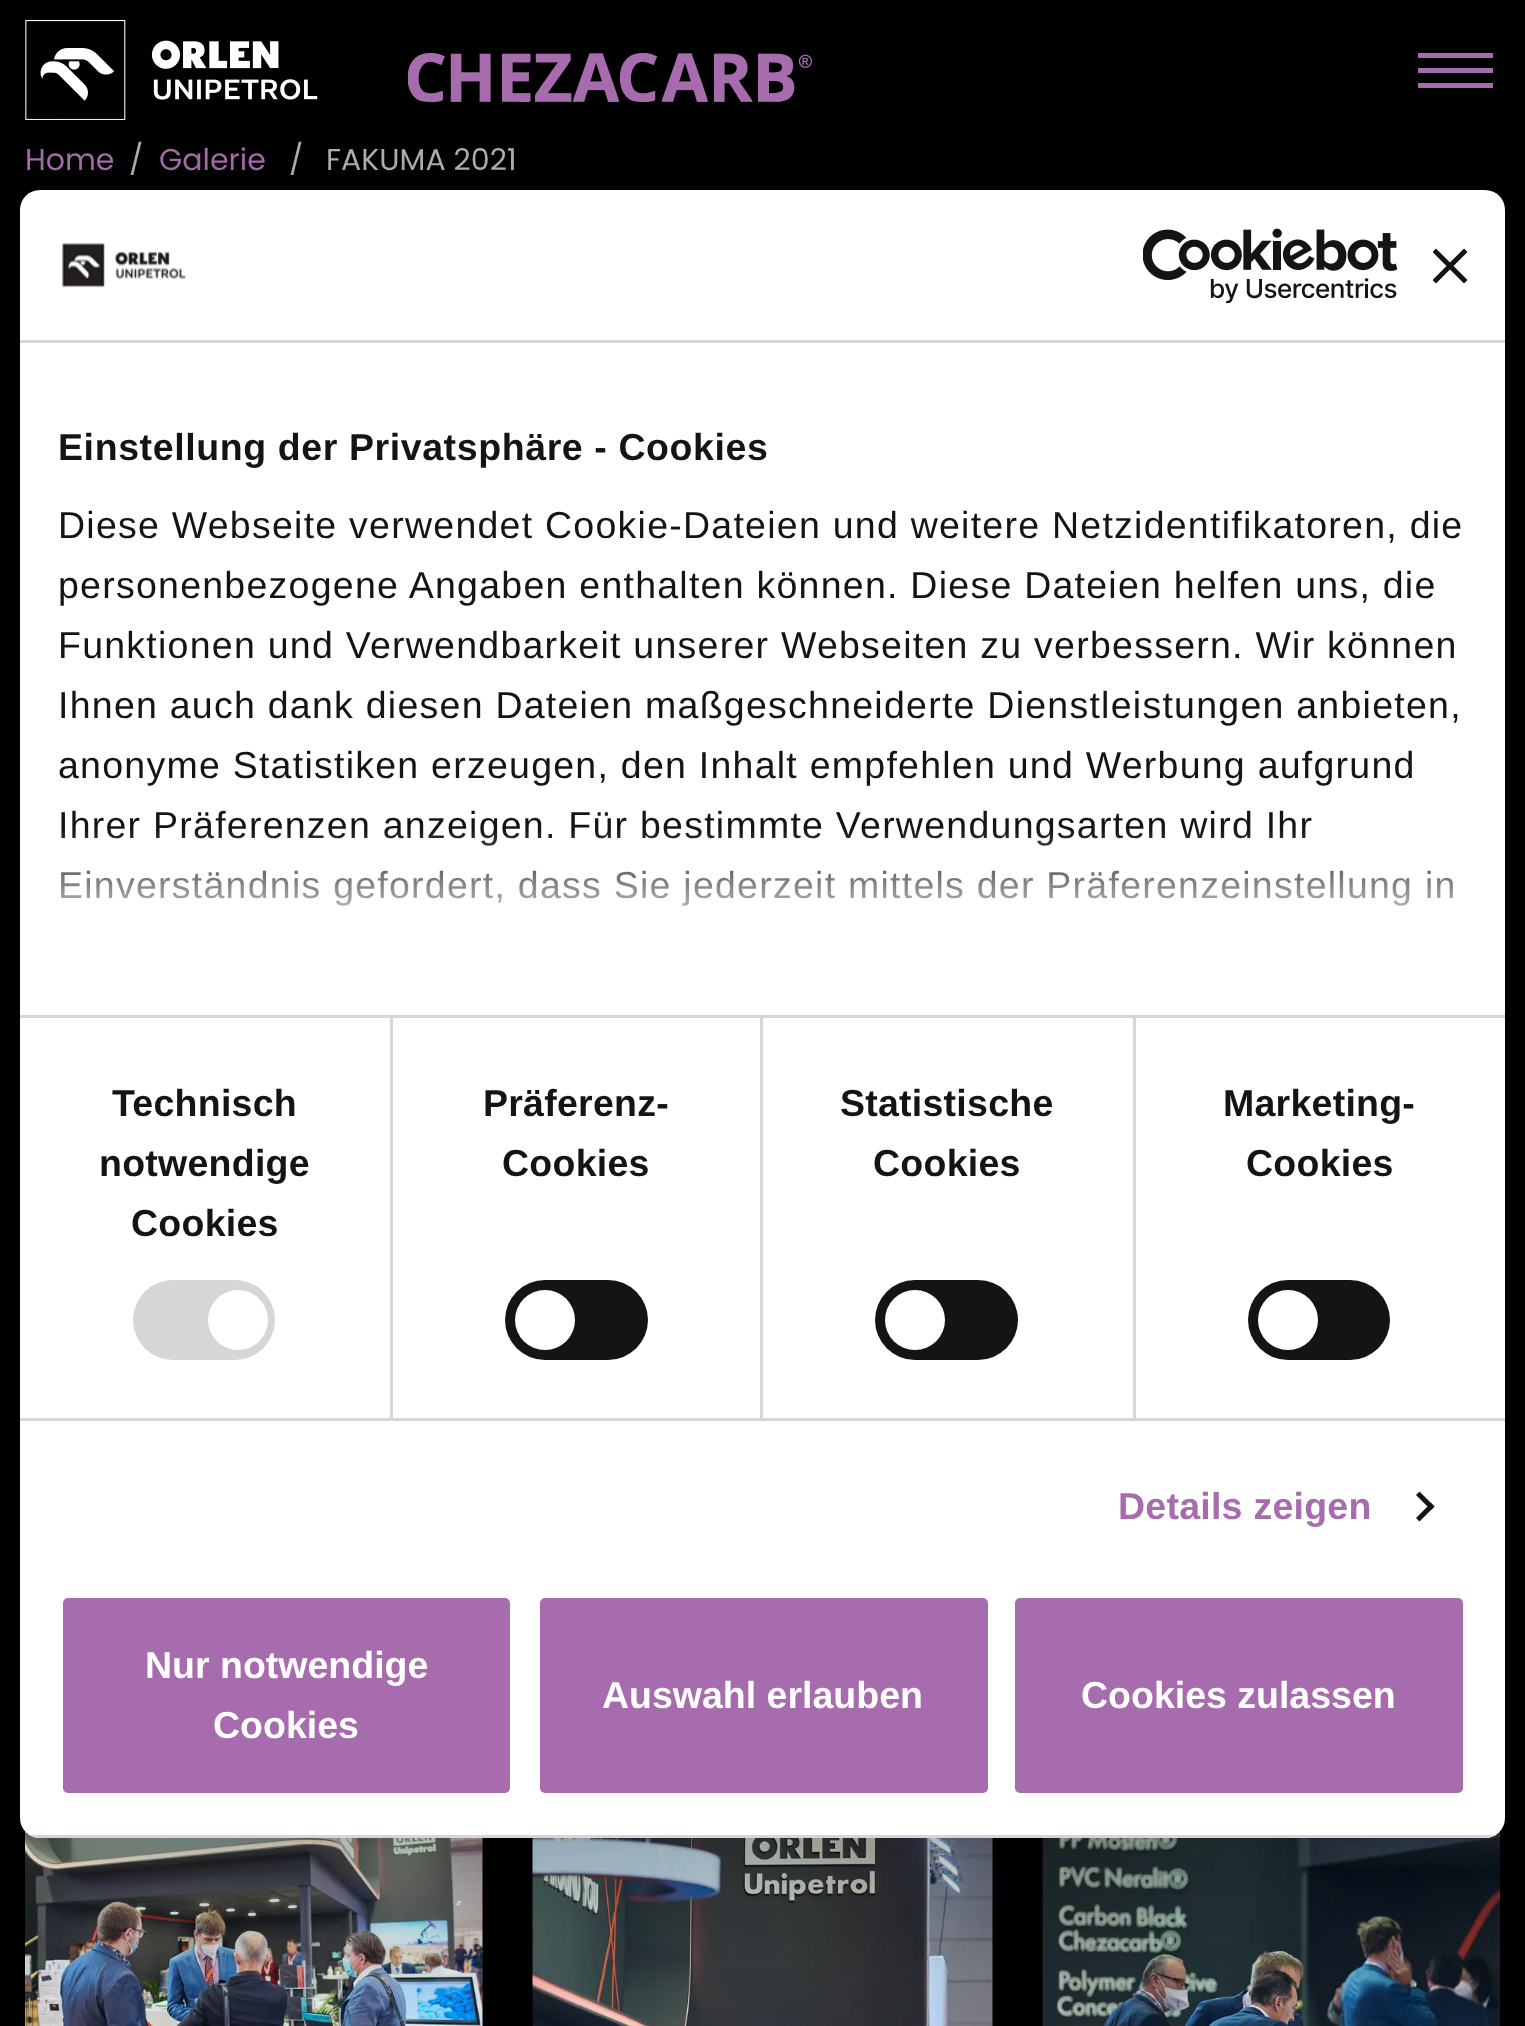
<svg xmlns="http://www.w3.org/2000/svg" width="1525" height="2026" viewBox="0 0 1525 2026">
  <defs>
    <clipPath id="clip1"><rect x="1433" y="248" width="35" height="35"/></clipPath>
    <linearGradient id="g1" gradientUnits="userSpaceOnUse" x1="746" y1="1016" x2="746" y2="828"><stop offset="0" stop-color="rgb(255,255,255)"/><stop offset="0.5" stop-color="rgb(255,255,255)" stop-opacity="0.8"/><stop offset="1" stop-color="rgb(255,255,255)" stop-opacity="0"/></linearGradient>
    <clipPath id="clip2"><rect x="20" y="190" width="1485" height="1648" rx="20"/></clipPath>
  </defs>
  <rect width="100%" height="100%" fill="rgb(0,0,0)"/>
  <image x="25" y="20" width="293" height="100" href="pic1.png"/>
  <image x="408" y="53" width="404" height="50" href="pic2.png"/>
  <rect x="1418" y="68" width="75" height="5" fill="rgb(167,108,173)"/>
  <rect x="1418" y="53" width="75" height="5" fill="rgb(167,108,173)"/>
  <rect x="1418" y="83" width="75" height="5" fill="rgb(167,108,173)"/>
  <text x="25" y="170" font-family="Poppins" font-size="30" fill="rgb(167,108,173)">Home</text>
  <text x="129" y="170" font-family="Poppins" font-size="30" fill="rgb(177,177,177)">/</text>
  <text x="159" y="170" font-family="Poppins" font-size="30" fill="rgb(167,108,173)">Galerie</text>
  <g font-family="Poppins" font-size="30" fill="rgb(177,177,177)">
    <text x="289" y="170">/</text>
    <text x="326" y="170">FAKUMA 2021</text>
  </g>
  <image x="25" y="1831" width="458" height="195" href="pic3.png"/>
  <image x="532" y="1838" width="461" height="188" href="pic4.png"/>
  <image x="1042" y="1831" width="458" height="195" href="pic5.png"/>
  <rect x="20" y="270" width="1485" height="1648" rx="20" fill="rgba(0,0,0,0.3)" filter="blur(85px)"/>
  <rect x="20" y="190" width="1485" height="1648" rx="20" fill="rgb(255,255,255)"/>
  <rect x="20" y="340" width="1485" height="3" fill="rgb(214,214,214)"/>
  <image x="62" y="243" width="125" height="45" href="pic6.png"/>
  <image x="1143" y="228" width="255" height="75" href="pic7.png"/>
  <g clip-path="url(#clip1)">
    <path d="M1467.5 252L1464 248.5L1450 262.5L1436 248.5L1432.5 252L1446.5 266L1432.5 280L1436 283.5L1450 269.5L1464 283.5L1467.5 280L1453.5 266Z" fill="rgb(20,20,20)"/>
  </g>
  <rect x="20" y="1015" width="1485" height="3" fill="rgb(214,214,214)"/>
  <text x="58" y="460" font-family="Liberation Sans" font-size="37.5" font-weight="bold" letter-spacing="0.6" fill="rgb(20,20,20)">Einstellung der Privatsphäre - Cookies</text>
  <g font-family="Liberation Sans" font-size="37.5" letter-spacing="1.25" fill="rgb(20,20,20)">
    <text>
      <tspan x="58" y="538">Diese Webseite verwendet Cookie-Dateien und weitere Netzidentifikatoren, die</tspan>
      <tspan x="58" y="598">personenbezogene Angaben enthalten können. Diese Dateien helfen uns, die</tspan>
      <tspan x="58" y="658">Funktionen und Verwendbarkeit unserer Webseiten zu verbessern. Wir können</tspan>
      <tspan x="58" y="718">Ihnen auch dank diesen Dateien maßgeschneiderte Dienstleistungen anbieten,</tspan>
      <tspan x="58" y="778">anonyme Statistiken erzeugen, den Inhalt empfehlen und Werbung aufgrund</tspan>
      <tspan x="58" y="838">Ihrer Präferenzen anzeigen. Für bestimmte Verwendungsarten wird Ihr</tspan>
      <tspan x="58" y="898">Einverständnis gefordert, dass Sie jederzeit mittels der Präferenzeinstellung in</tspan>
    </text>
  </g>
  <rect x="60" y="831" width="1393" height="75" fill="url(#g1)"/>
  <rect x="20" y="1418" width="1485" height="3" fill="rgb(214,214,214)"/>
  <rect x="390" y="1018" width="3" height="400" fill="rgb(214,214,214)"/>
  <g font-family="Liberation Sans" font-size="37.5" font-weight="bold" letter-spacing="0.25" fill="rgb(20,20,20)">
    <text x="112" y="1116">Technisch</text>
    <text x="99" y="1176">notwendige</text>
    <text x="131" y="1236">Cookies</text>
  </g>
  <rect x="133" y="1280" width="142" height="80" rx="40" fill="rgb(214,214,214)"/>
  <circle cx="238" cy="1320" r="30" fill="rgb(255,255,255)"/>
  <rect x="760" y="1018" width="3" height="400" fill="rgb(214,214,214)"/>
  <g font-family="Liberation Sans" font-size="37.5" font-weight="bold" letter-spacing="0.25" fill="rgb(20,20,20)">
    <text x="483" y="1116">Präferenz-</text>
    <text x="502" y="1176">Cookies</text>
  </g>
  <rect x="505" y="1280" width="143" height="80" rx="40" fill="rgb(20,20,20)"/>
  <circle cx="545" cy="1320" r="30" fill="rgb(255,255,255)"/>
  <rect x="1133" y="1018" width="3" height="400" fill="rgb(214,214,214)"/>
  <g font-family="Liberation Sans" font-size="37.5" font-weight="bold" letter-spacing="0.25" fill="rgb(20,20,20)">
    <text x="840" y="1116">Statistische</text>
    <text x="873" y="1176">Cookies</text>
  </g>
  <rect x="875" y="1280" width="143" height="80" rx="40" fill="rgb(20,20,20)"/>
  <circle cx="915" cy="1320" r="30" fill="rgb(255,255,255)"/>
  <g font-family="Liberation Sans" font-size="37.5" font-weight="bold" letter-spacing="0.25" fill="rgb(20,20,20)">
    <text x="1223" y="1116">Marketing-</text>
    <text x="1246" y="1176">Cookies</text>
  </g>
  <rect x="1248" y="1280" width="142" height="80" rx="40" fill="rgb(20,20,20)"/>
  <circle cx="1288" cy="1320" r="30" fill="rgb(255,255,255)"/>
  <text x="1118" y="1519" font-family="Liberation Sans" font-size="37.5" font-weight="bold" letter-spacing="0.25" fill="rgb(167,108,173)">Details zeigen</text>
  <path d="M1419.5 1491.5L1434.5 1506.5L1431 1510L1416 1495Z" fill="rgb(20,20,20)"/>
  <path d="M1431 1503L1434.5 1506.5L1419.5 1521.5L1416 1518Z" fill="rgb(20,20,20)"/>
  <g clip-path="url(#clip2)">
    <rect x="29" y="1835" width="1467" height="3" fill="rgb(214,214,214)"/>
  </g>
  <rect x="60.5" y="1595.5" width="452" height="200" rx="7.5" fill="rgb(167,108,174)" stroke="rgb(255,255,255)" stroke-width="5"/>
  <g font-family="Liberation Sans" font-size="37.5" font-weight="bold" fill="rgb(255,255,255)">
    <text x="145" y="1678">Nur notwendige</text>
    <text x="213" y="1738">Cookies</text>
  </g>
  <rect x="537.5" y="1595.5" width="453" height="200" rx="7.5" fill="rgb(167,108,174)" stroke="rgb(255,255,255)" stroke-width="5"/>
  <text x="602" y="1708" font-family="Liberation Sans" font-size="37.5" font-weight="bold" fill="rgb(255,255,255)">Auswahl erlauben</text>
  <rect x="1012.5" y="1595.5" width="453" height="200" rx="7.5" fill="rgb(167,108,174)" stroke="rgb(255,255,255)" stroke-width="5"/>
  <text x="1081" y="1708" font-family="Liberation Sans" font-size="37.5" font-weight="bold" fill="rgb(255,255,255)">Cookies zulassen</text>
</svg>
